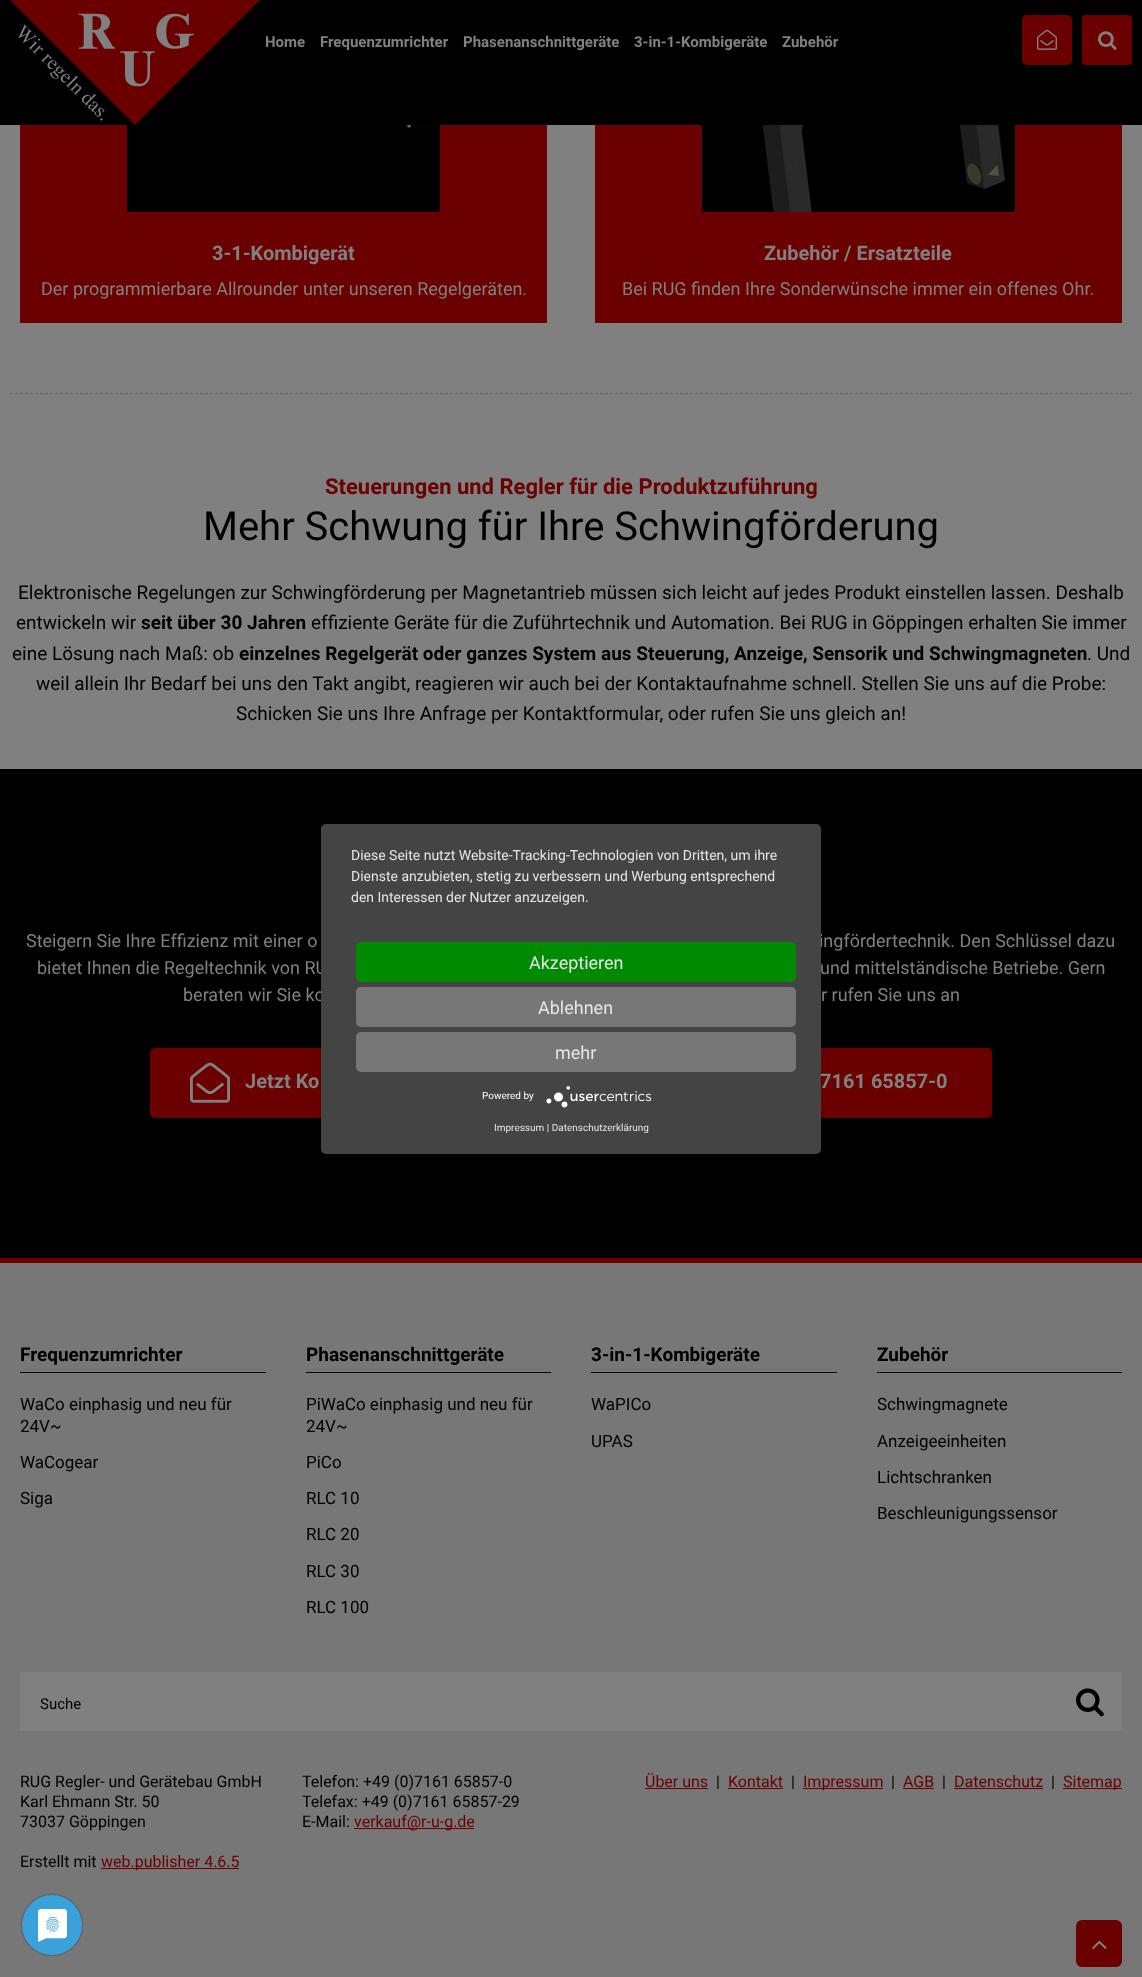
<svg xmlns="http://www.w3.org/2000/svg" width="1142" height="1977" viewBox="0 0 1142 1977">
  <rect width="100%" height="100%" fill="rgb(128,128,128)"/>
  <rect x="0" y="0" width="1142" height="125" fill="rgb(0,0,0)"/>
  <image x="10" y="0" width="250" height="125" href="pic1.png"/>
  <image x="18" y="24" width="87" height="97" href="pic2.png"/>
  <g font-family="Roboto" font-size="15" font-weight="bold" fill="rgb(128,128,128)">
    <text x="265" y="47">Home</text>
    <text x="320" y="47">Frequenzumrichter</text>
    <text x="463" y="47">Phasenanschnittgeräte</text>
    <text x="634" y="47">3-in-1-Kombigeräte</text>
    <text x="782" y="47">Zubehör</text>
  </g>
  <rect x="1022" y="15" width="50" height="50" rx="5" fill="rgb(107,0,0)"/>
  <image x="1037" y="29" width="20" height="21" href="pic3.png"/>
  <rect x="1082" y="15" width="50" height="50" rx="4" fill="rgb(107,0,0)"/>
  <image x="1098" y="31" width="19" height="19" href="pic4.png"/>
  <rect x="20" y="125" width="527" height="198" fill="rgb(107,0,0)"/>
  <image x="127" y="125" width="313" height="87" href="pic5.png"/>
  <text x="212" y="260" font-family="Roboto" font-size="20" font-weight="bold" fill="rgb(128,128,128)">3-1-Kombigerät</text>
  <text x="41" y="295" font-family="Roboto" font-size="18" fill="rgb(128,128,128)">Der programmierbare Allrounder unter unseren Regelgeräten.</text>
  <rect x="595" y="125" width="527" height="198" fill="rgb(107,0,0)"/>
  <image x="702" y="125" width="313" height="87" href="pic6.png"/>
  <text x="764" y="260" font-family="Roboto" font-size="20" font-weight="bold" fill="rgb(128,128,128)">Zubehör / Ersatzteile</text>
  <text x="622" y="295" font-family="Roboto" font-size="18" fill="rgb(128,128,128)">Bei RUG finden Ihre Sonderwünsche immer ein offenes Ohr.</text>
  <path d="M10 393.5H1132" fill="none" stroke="rgb(94,94,94)" stroke-dasharray="3 2"/>
  <text x="325" y="494" font-family="Roboto" font-size="22" font-weight="bold" fill="rgb(107,0,0)">Steuerungen und Regler für die Produktzuführung</text>
  <text x="203" y="540" font-family="Roboto" font-size="40" fill="rgb(0,0,0)">Mehr Schwung für Ihre Schwingförderung</text>
  <g font-family="Roboto" font-size="19" fill="rgb(0,0,0)">
    <text x="18" y="599">Elektronische Regelungen zur Schwingförderung per Magnetantrieb müssen sich leicht auf jedes Produkt einstellen lassen. Deshalb</text>
    <text x="16" y="629">entwickeln wir</text>
  </g>
  <text x="141" y="629" font-family="Roboto" font-size="19" font-weight="bold" fill="rgb(0,0,0)">seit über 30 Jahren</text>
  <g font-family="Roboto" font-size="19" fill="rgb(0,0,0)">
    <text x="311" y="629">effiziente Geräte für die Zuführtechnik und Automation. Bei RUG in Göppingen erhalten Sie immer</text>
    <text x="12" y="660">eine Lösung nach Maß: ob</text>
  </g>
  <text x="239" y="660" font-family="Roboto" font-size="19" font-weight="bold" fill="rgb(0,0,0)">einzelnes Regelgerät oder ganzes System aus Steuerung, Anzeige, Sensorik und Schwingmagneten</text>
  <g font-family="Roboto" font-size="19" fill="rgb(0,0,0)">
    <text x="1087" y="660">. Und</text>
    <text x="36" y="690">weil allein Ihr Bedarf bei uns den Takt angibt, reagieren wir auch bei der Kontaktaufnahme schnell. Stellen Sie uns auf die Probe:</text>
    <text x="236" y="720">Schicken Sie uns Ihre Anfrage per Kontaktformular, oder rufen Sie uns gleich an!</text>
  </g>
  <rect x="0" y="769" width="1142" height="489" fill="rgb(0,0,0)"/>
  <rect x="150" y="1048" width="362" height="70" rx="5" fill="rgb(107,0,0)"/>
  <rect x="536" y="1048" width="456" height="70" rx="5" fill="rgb(107,0,0)"/>
  <rect x="321" y="827" width="500" height="330" rx="5" fill="rgba(0,0,0,0.1)" filter="blur(5px)"/>
  <g font-family="Roboto" font-size="18" fill="rgb(128,128,128)">
    <text x="819" y="947">ingfördertechnik. Den Schlüssel dazu</text>
    <text x="37" y="974">bietet Ihnen die Regeltechnik von RU</text>
    <text x="183" y="1001">beraten wir Sie ko</text>
  </g>
  <text x="820" y="1088" font-family="Roboto" font-size="20" font-weight="bold" fill="rgb(128,128,128)">7161 65857-0</text>
  <rect x="321" y="824" width="500" height="330" rx="5" fill="rgb(68,68,68)"/>
  <g font-family="Roboto" font-size="14" fill="rgb(230,230,230)">
    <text>
      <tspan x="351" y="860">Diese Seite nutzt Website-Tracking-Technologien von Dritten, um ihre</tspan>
      <tspan x="351" y="881">Dienste anzubieten, stetig zu verbessern und Werbung entsprechend</tspan>
      <tspan x="351" y="902">den Interessen der Nutzer anzuzeigen.</tspan>
    </text>
  </g>
  <rect x="356" y="942" width="440" height="40" rx="5" fill="rgb(0,139,2)"/>
  <text x="529" y="969" font-family="Roboto" font-size="18" fill="rgb(230,230,230)">Akzeptieren</text>
  <rect x="356" y="987" width="440" height="40" rx="5" fill="rgb(119,119,119)"/>
  <text x="538" y="1014" font-family="Roboto" font-size="18" fill="rgb(230,230,230)">Ablehnen</text>
  <rect x="356" y="1032" width="440" height="40" rx="5" fill="rgb(119,119,119)"/>
  <text x="555" y="1059" font-family="Roboto" font-size="18" fill="rgb(230,230,230)">mehr</text>
  <text x="482" y="1099" font-family="Roboto" font-size="10" fill="rgb(255,255,255)">Powered by</text>
  <image x="546" y="1086" width="106" height="22" href="pic7.png"/>
  <text x="494" y="1131" font-family="Roboto" font-size="10" fill="rgb(230,230,230)">Impressum | Datenschutzerklärung</text>
  <rect x="0" y="1263" width="1142" height="714" fill="rgb(119,119,119)"/>
  <image x="20" y="1893" width="64" height="64" href="pic8.png"/>
  <rect x="0" y="1258" width="1142" height="5" fill="rgb(107,0,0)"/>
  <g font-family="Roboto" font-size="18" fill="rgb(128,128,128)">
    <text x="26" y="947">Steigern Sie Ihre Effizienz mit einer o</text>
    <text x="820" y="974">und mittelständische Betriebe. Gern</text>
    <text x="821" y="1001">r rufen Sie uns an</text>
  </g>
  <image x="190" y="1062" width="40" height="41" href="pic9.png"/>
  <text x="245" y="1088" font-family="Roboto" font-size="20" font-weight="bold" fill="rgb(128,128,128)">Jetzt Ko</text>
  <rect x="20" y="1372" width="246" height="1" fill="rgb(0,0,0)"/>
  <text x="20" y="1361" font-family="Roboto" font-size="19" font-weight="bold" fill="rgb(0,0,0)">Frequenzumrichter</text>
  <g font-family="Roboto" font-size="17" fill="rgb(0,0,0)">
    <text>
      <tspan x="20" y="1410">WaCo einphasig und neu für</tspan>
      <tspan x="20" y="1432">24V~</tspan>
    </text>
    <text x="20" y="1468">WaCogear</text>
    <text x="20" y="1504">Siga</text>
  </g>
  <rect x="306" y="1372" width="245" height="1" fill="rgb(0,0,0)"/>
  <text x="306" y="1361" font-family="Roboto" font-size="19" font-weight="bold" fill="rgb(0,0,0)">Phasenanschnittgeräte</text>
  <g font-family="Roboto" font-size="17" fill="rgb(0,0,0)">
    <text>
      <tspan x="306" y="1410">PiWaCo einphasig und neu für</tspan>
      <tspan x="306" y="1432">24V~</tspan>
    </text>
    <text x="306" y="1468">PiCo</text>
    <text x="306" y="1504">RLC 10</text>
    <text x="306" y="1540">RLC 20</text>
    <text x="306" y="1577">RLC 30</text>
    <text x="306" y="1613">RLC 100</text>
  </g>
  <rect x="591" y="1372" width="246" height="1" fill="rgb(0,0,0)"/>
  <text x="591" y="1361" font-family="Roboto" font-size="19" font-weight="bold" fill="rgb(0,0,0)">3-in-1-Kombigeräte</text>
  <g font-family="Roboto" font-size="17" fill="rgb(0,0,0)">
    <text x="591" y="1410">WaPICo</text>
    <text x="591" y="1447">UPAS</text>
  </g>
  <rect x="877" y="1372" width="245" height="1" fill="rgb(0,0,0)"/>
  <text x="877" y="1361" font-family="Roboto" font-size="19" font-weight="bold" fill="rgb(0,0,0)">Zubehör</text>
  <g font-family="Roboto" font-size="17" fill="rgb(0,0,0)">
    <text x="877" y="1410">Schwingmagnete</text>
    <text x="877" y="1447">Anzeigeeinheiten</text>
    <text x="877" y="1483">Lichtschranken</text>
    <text x="877" y="1519">Beschleunigungssensor</text>
  </g>
  <rect x="20" y="1672" width="1102" height="59" fill="rgb(128,128,128)"/>
  <text x="40" y="1709" font-family="Roboto" font-size="15" fill="rgb(0,0,0)">Suche</text>
  <image x="1076" y="1688" width="28" height="29" href="pic10.png"/>
  <g font-family="Roboto" font-size="16" fill="rgb(0,0,0)">
    <text>
      <tspan x="20" y="1787">RUG Regler- und Gerätebau GmbH</tspan>
      <tspan x="20" y="1807">Karl Ehmann Str. 50</tspan>
      <tspan x="20" y="1827">73037 Göppingen</tspan>
    </text>
    <text>
      <tspan x="302" y="1787">Telefon: +49 (0)7161 65857-0</tspan>
      <tspan x="302" y="1807">Telefax: +49 (0)7161 65857-29</tspan>
      <tspan x="302" y="1827">E-Mail:</tspan>
    </text>
  </g>
  <rect x="354" y="1828" width="120" height="1" fill="rgb(107,0,0)"/>
  <text x="354" y="1827" font-family="Roboto" font-size="16" fill="rgb(107,0,0)">verkauf@r-u-g.de</text>
  <text x="20" y="1867" font-family="Roboto" font-size="16" fill="rgb(0,0,0)">Erstellt mit</text>
  <rect x="101" y="1868" width="138" height="1" fill="rgb(107,0,0)"/>
  <g font-family="Roboto" font-size="16" fill="rgb(107,0,0)">
    <text x="101" y="1867">web.publisher 4.6.5</text>
    <text x="645" y="1787">Über uns</text>
  </g>
  <rect x="645" y="1788" width="63" height="1" fill="rgb(107,0,0)"/>
  <text x="716" y="1787" font-family="Roboto" font-size="16" fill="rgb(0,0,0)">|</text>
  <text x="728" y="1787" font-family="Roboto" font-size="16" fill="rgb(107,0,0)">Kontakt</text>
  <rect x="728" y="1788" width="55" height="1" fill="rgb(107,0,0)"/>
  <text x="791" y="1787" font-family="Roboto" font-size="16" fill="rgb(0,0,0)">|</text>
  <rect x="803" y="1788" width="80" height="1" fill="rgb(107,0,0)"/>
  <text x="803" y="1787" font-family="Roboto" font-size="16" fill="rgb(107,0,0)">Impressum</text>
  <text x="891" y="1787" font-family="Roboto" font-size="16" fill="rgb(0,0,0)">|</text>
  <text x="903" y="1787" font-family="Roboto" font-size="16" fill="rgb(107,0,0)">AGB</text>
  <rect x="903" y="1788" width="31" height="1" fill="rgb(107,0,0)"/>
  <text x="942" y="1787" font-family="Roboto" font-size="16" fill="rgb(0,0,0)">|</text>
  <text x="954" y="1787" font-family="Roboto" font-size="16" fill="rgb(107,0,0)">Datenschutz</text>
  <rect x="954" y="1788" width="89" height="1" fill="rgb(107,0,0)"/>
  <text x="1051" y="1787" font-family="Roboto" font-size="16" fill="rgb(0,0,0)">|</text>
  <rect x="1063" y="1788" width="59" height="1" fill="rgb(107,0,0)"/>
  <text x="1063" y="1787" font-family="Roboto" font-size="16" fill="rgb(107,0,0)">Sitemap</text>
  <rect x="1076" y="1920" width="46" height="47" rx="6" fill="rgb(107,0,0)"/>
  <image x="1092" y="1940" width="15" height="9" href="pic11.png"/>
</svg>
